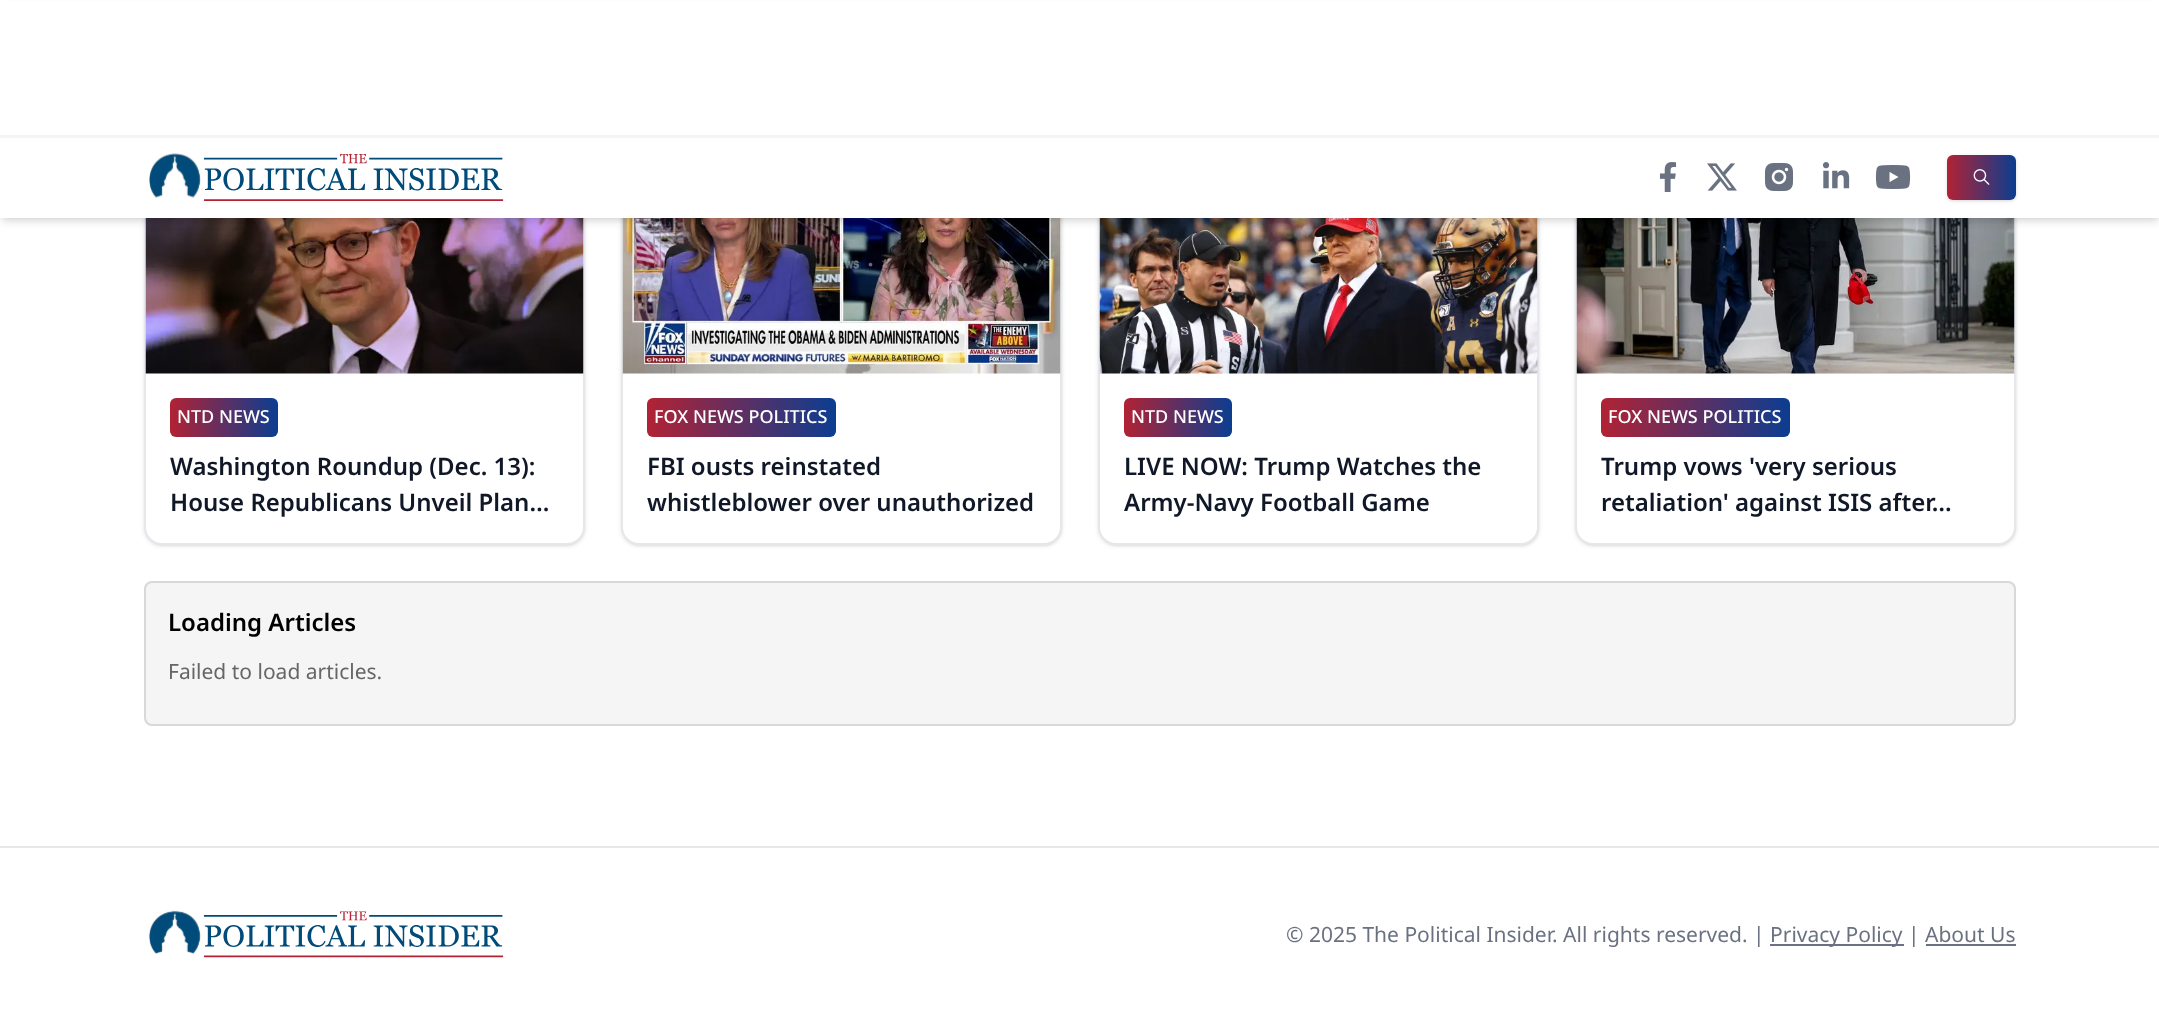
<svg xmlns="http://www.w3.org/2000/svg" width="2159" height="1021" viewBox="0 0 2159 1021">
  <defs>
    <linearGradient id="g1" gradientUnits="userSpaceOnUse" x1="1947" y1="177" x2="2016" y2="177"><stop offset="0" stop-color="rgb(178,34,52)"/><stop offset="1" stop-color="rgb(11,61,145)"/></linearGradient>
    <linearGradient id="g2" gradientUnits="userSpaceOnUse" x1="170" y1="417" x2="278" y2="417"><stop offset="0" stop-color="rgb(178,34,52)"/><stop offset="1" stop-color="rgb(11,61,145)"/></linearGradient>
    <linearGradient id="g3" gradientUnits="userSpaceOnUse" x1="647" y1="417" x2="836" y2="417"><stop offset="0" stop-color="rgb(178,34,52)"/><stop offset="1" stop-color="rgb(11,61,145)"/></linearGradient>
    <linearGradient id="g4" gradientUnits="userSpaceOnUse" x1="1124" y1="417" x2="1232" y2="417"><stop offset="0" stop-color="rgb(178,34,52)"/><stop offset="1" stop-color="rgb(11,61,145)"/></linearGradient>
    <linearGradient id="g5" gradientUnits="userSpaceOnUse" x1="1601" y1="417" x2="1790" y2="417"><stop offset="0" stop-color="rgb(178,34,52)"/><stop offset="1" stop-color="rgb(11,61,145)"/></linearGradient>
  </defs>
  <rect width="100%" height="100%" fill="rgb(255,255,255)"/>
  <rect x="146" y="129" width="438" height="416" rx="17" fill="rgba(0,0,0,0.1)" filter="blur(1.5px)"/>
  <rect x="144" y="128" width="441" height="418" rx="18" fill="rgba(0,0,0,0.1)" filter="blur(2px)"/>
  <rect x="145" y="127" width="439" height="417" rx="17" fill="rgb(255,255,255)" stroke="rgb(229,231,235)" stroke-width="2"/>
  <image x="145" y="218" width="439" height="156" href="pic8.png"/>
  <rect x="623" y="129" width="438" height="416" rx="17" fill="rgba(0,0,0,0.1)" filter="blur(1.5px)"/>
  <rect x="621" y="128" width="441" height="418" rx="18" fill="rgba(0,0,0,0.1)" filter="blur(2px)"/>
  <rect x="622" y="127" width="439" height="417" rx="17" fill="rgb(255,255,255)" stroke="rgb(229,231,235)" stroke-width="2"/>
  <image x="622" y="218" width="439" height="156" href="pic9.png"/>
  <rect x="1100" y="129" width="438" height="416" rx="17" fill="rgba(0,0,0,0.1)" filter="blur(1.5px)"/>
  <rect x="1098" y="128" width="441" height="418" rx="18" fill="rgba(0,0,0,0.1)" filter="blur(2px)"/>
  <rect x="1099" y="127" width="439" height="417" rx="17" fill="rgb(255,255,255)" stroke="rgb(229,231,235)" stroke-width="2"/>
  <image x="1099" y="218" width="439" height="156" href="pic10.png"/>
  <rect x="1577" y="129" width="438" height="416" rx="17" fill="rgba(0,0,0,0.1)" filter="blur(1.5px)"/>
  <rect x="1575" y="128" width="441" height="418" rx="18" fill="rgba(0,0,0,0.1)" filter="blur(2px)"/>
  <rect x="1576" y="127" width="439" height="417" rx="17" fill="rgb(255,255,255)" stroke="rgb(229,231,235)" stroke-width="2"/>
  <image x="1576" y="218" width="439" height="156" href="pic11.png"/>
  <rect x="3" y="6" width="2154" height="212" fill="rgba(0,0,0,0.1)" filter="blur(3px)"/>
  <rect x="2" y="8" width="2157" height="214" fill="rgba(0,0,0,0.1)" filter="blur(4.5px)"/>
  <rect x="0" y="1" width="2159" height="217" fill="rgb(255,255,255)"/>
  <rect x="0" y="135" width="2159" height="3" fill="rgb(243,244,246)"/>
  <image x="149" y="153" width="355" height="48" href="pic1.png"/>
  <image x="1659" y="162" width="18" height="30" href="pic2.png"/>
  <image x="1707" y="163" width="30" height="28" href="pic3.png"/>
  <image x="1764" y="162" width="30" height="30" href="pic4.png"/>
  <image x="1822" y="162" width="28" height="27" href="pic5.png"/>
  <image x="1875" y="165" width="36" height="24" href="pic6.png"/>
  <rect x="1949" y="158" width="66" height="42" rx="5" fill="rgba(0,0,0,0.1)" filter="blur(1.5px)"/>
  <rect x="1947" y="156" width="69" height="45" rx="6" fill="rgba(0,0,0,0.1)" filter="blur(2px)"/>
  <rect x="1947" y="155" width="69" height="45" rx="6" fill="url(#g1)"/>
  <image x="1973" y="169" width="17" height="16" href="pic7.png"/>
  <rect x="170" y="398" width="108" height="39" rx="6" fill="url(#g2)"/>
  <text x="177" y="423" font-family="Noto Sans" font-size="18" font-weight="500" fill="rgb(255,255,255)">NTD NEWS</text>
  <g font-family="Noto Sans" font-size="24" font-weight="600" fill="rgb(16,24,40)">
    <text>
      <tspan x="170" y="475">Washington Roundup (Dec. 13):</tspan>
      <tspan x="170" y="511">House Republicans Unveil Plan…</tspan>
    </text>
  </g>
  <rect x="647" y="398" width="189" height="39" rx="6" fill="url(#g3)"/>
  <text x="654" y="423" font-family="Noto Sans" font-size="18" font-weight="500" fill="rgb(255,255,255)">FOX NEWS POLITICS</text>
  <g font-family="Noto Sans" font-size="24" font-weight="600" fill="rgb(16,24,40)">
    <text>
      <tspan x="647" y="475">FBI ousts reinstated</tspan>
      <tspan x="647" y="511">whistleblower over unauthorized</tspan>
    </text>
  </g>
  <rect x="1124" y="398" width="108" height="39" rx="6" fill="url(#g4)"/>
  <text x="1131" y="423" font-family="Noto Sans" font-size="18" font-weight="500" fill="rgb(255,255,255)">NTD NEWS</text>
  <g font-family="Noto Sans" font-size="24" font-weight="600" fill="rgb(16,24,40)">
    <text>
      <tspan x="1124" y="475">LIVE NOW: Trump Watches the</tspan>
      <tspan x="1124" y="511">Army-Navy Football Game</tspan>
    </text>
  </g>
  <rect x="1601" y="398" width="189" height="39" rx="6" fill="url(#g5)"/>
  <text x="1608" y="423" font-family="Noto Sans" font-size="18" font-weight="500" fill="rgb(255,255,255)">FOX NEWS POLITICS</text>
  <g font-family="Noto Sans" font-size="24" font-weight="600" fill="rgb(16,24,40)">
    <text>
      <tspan x="1601" y="475">Trump vows 'very serious</tspan>
      <tspan x="1601" y="511">retaliation' against ISIS after…</tspan>
    </text>
  </g>
  <rect x="145" y="582" width="1870" height="143" rx="7" fill="rgb(245,245,245)" stroke="rgb(216,216,216)" stroke-width="2"/>
  <text x="168" y="631" font-family="Noto Sans" font-size="24" font-weight="600" fill="rgb(0,0,0)">Loading Articles</text>
  <text x="168" y="679" font-family="Noto Sans" font-size="21" fill="rgb(102,102,102)">Failed to load articles.</text>
  <rect x="0" y="846" width="2159" height="2" fill="rgb(229,231,235)"/>
  <image x="148" y="910" width="356" height="48" href="pic12.png"/>
  <text x="1286" y="942" font-family="Noto Sans" font-size="21" fill="rgb(106,114,130)">© 2025 The Political Insider. All rights reserved. |</text>
  <rect x="1770" y="944" width="134" height="2" fill="rgb(106,114,130)"/>
  <text x="1770" y="942" font-family="Noto Sans" font-size="21" fill="rgb(106,114,130)">Privacy Policy | About Us</text>
  <rect x="1926" y="944" width="90" height="2" fill="rgb(106,114,130)"/>
</svg>
